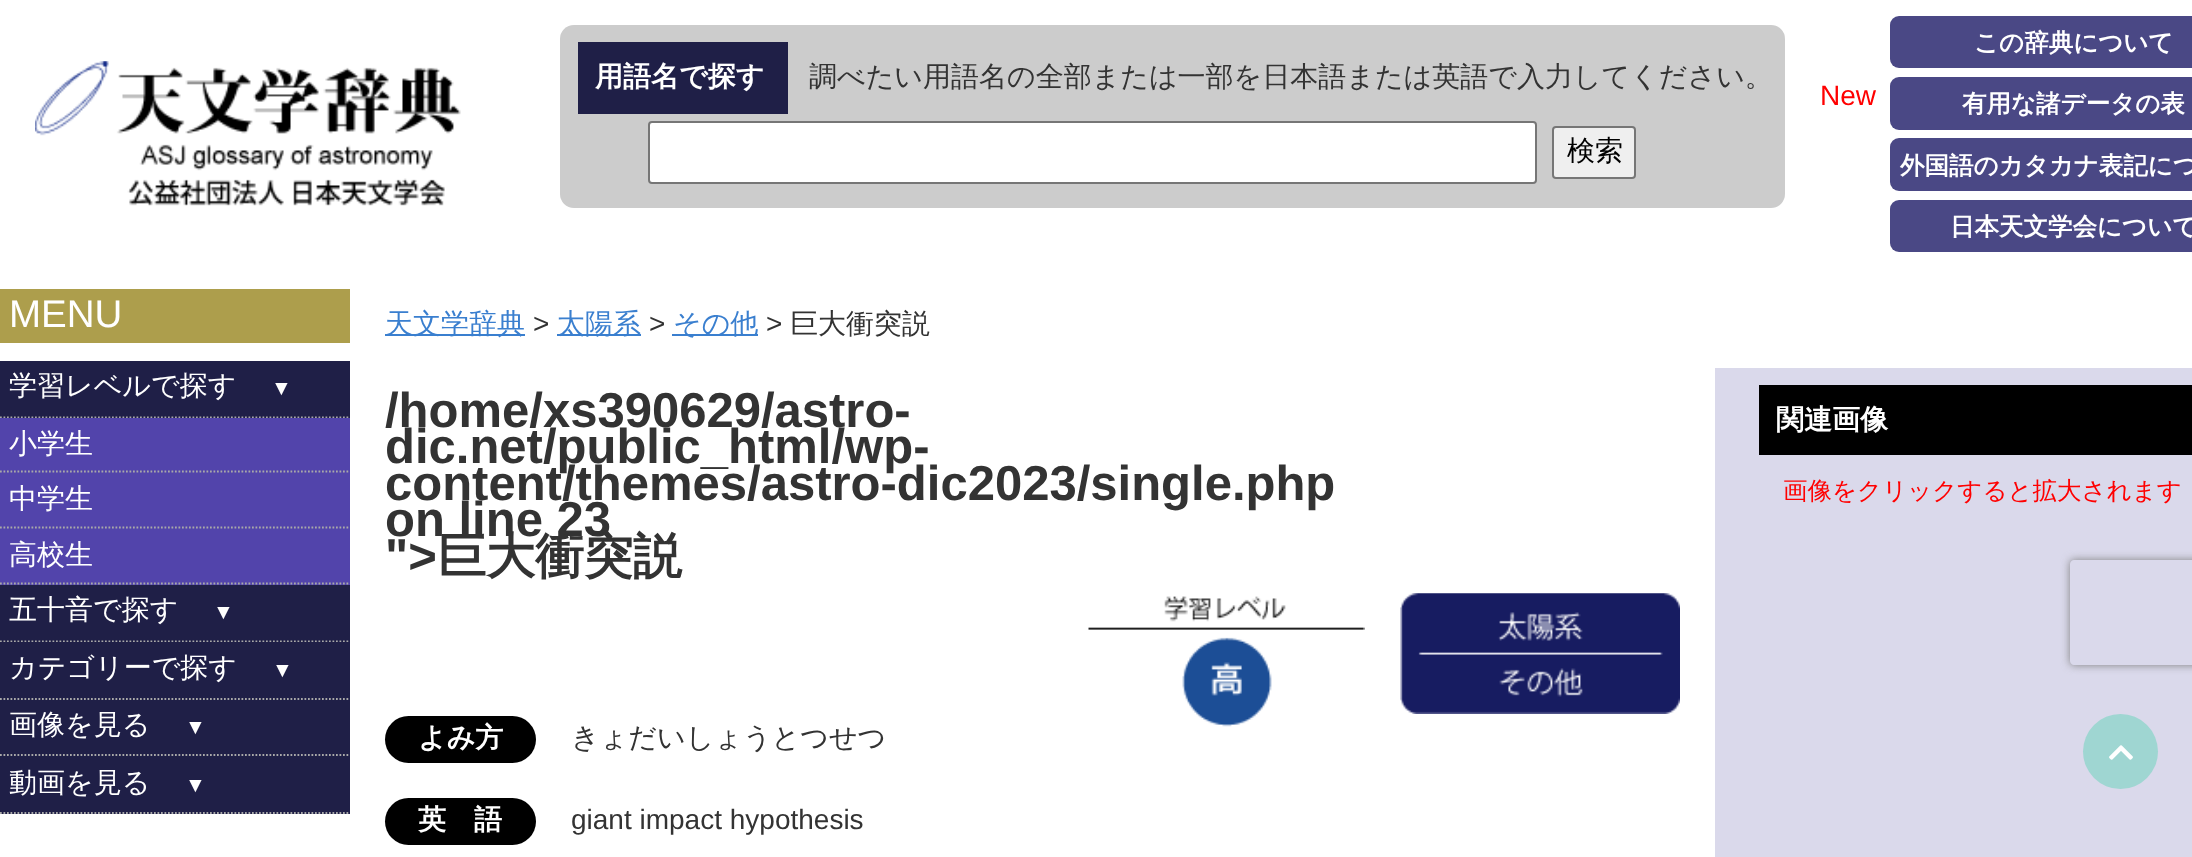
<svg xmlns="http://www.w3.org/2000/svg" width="2192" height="857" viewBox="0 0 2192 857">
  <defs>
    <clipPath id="clip1"><path d="M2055 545H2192V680H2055ZM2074 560H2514C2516 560 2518 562 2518 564V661C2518 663 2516 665 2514 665H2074C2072 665 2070 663 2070 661V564C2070 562 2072 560 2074 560Z" clip-rule="evenodd"/></clipPath>
  </defs>
  <rect width="100%" height="100%" fill="rgb(255,255,255)"/>
  <image x="35" y="61" width="426" height="145" href="pic1.png"/>
  <rect x="560" y="25" width="1225" height="183" rx="14" fill="rgb(204,204,204)"/>
  <rect x="578" y="42" width="210" height="72" fill="rgb(31,31,71)"/>
  <text x="595" y="86" font-family="WenQuanYi Zen Hei" font-size="28" font-weight="bold" fill="rgb(255,255,255)">用語名で探す</text>
  <text x="809" y="86" font-family="WenQuanYi Zen Hei" font-size="28" font-weight="500" fill="rgb(51,51,51)">調べたい用語名の全部または一部を日本語または英語で入力してください。</text>
  <rect x="649" y="122" width="887" height="61" rx="3" fill="rgb(255,255,255)" stroke="rgb(118,118,118)" stroke-width="2"/>
  <rect x="1553" y="127" width="82" height="51" rx="3" fill="rgb(239,239,239)" stroke="rgb(118,118,118)" stroke-width="2"/>
  <text x="1567" y="160" font-family="WenQuanYi Zen Hei" font-size="28" font-weight="500" fill="rgb(0,0,0)">検索</text>
  <text x="1820" y="105" font-family="Liberation Sans" font-size="28" fill="rgb(255,0,0)">New</text>
  <rect x="1890" y="16" width="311" height="52" rx="9" fill="rgb(74,72,133)"/>
  <text x="1974" y="51" font-family="WenQuanYi Zen Hei" font-size="24.5" font-weight="bold" fill="rgb(255,255,255)">この辞典について</text>
  <rect x="1890" y="77" width="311" height="53" rx="9" fill="rgb(74,72,133)"/>
  <text x="1962" y="112" font-family="WenQuanYi Zen Hei" font-size="24.5" font-weight="bold" fill="rgb(255,255,255)">有用な諸データの表</text>
  <rect x="1890" y="138" width="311" height="53" rx="9" fill="rgb(74,72,133)"/>
  <text x="1900" y="174" font-family="WenQuanYi Zen Hei" font-size="24.5" font-weight="bold" fill="rgb(255,255,255)">外国語のカタカナ表記につ</text>
  <rect x="1890" y="200" width="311" height="52" rx="9" fill="rgb(74,72,133)"/>
  <text x="1950" y="235" font-family="WenQuanYi Zen Hei" font-size="24.5" font-weight="bold" fill="rgb(255,255,255)">日本天文学会について</text>
  <rect x="0" y="289" width="350" height="54" fill="rgb(173,158,76)"/>
  <text x="9" y="327" font-family="Liberation Sans" font-size="38.5" fill="rgb(255,255,255)">MENU</text>
  <rect x="0" y="361" width="350" height="57" fill="rgb(31,31,71)"/>
  <path d="M0 417.5H350" fill="none" stroke="rgb(169,169,169)" stroke-width="1.8" stroke-dasharray="1.75 1.75"/>
  <text x="9" y="395" font-family="WenQuanYi Zen Hei" font-size="28" font-weight="500" fill="rgb(255,255,255)">学習レベルで探す</text>
  <text x="271" y="395" font-family="Liberation Sans" font-size="21" fill="rgb(255,255,255)">▼</text>
  <rect x="0" y="418" width="350" height="167" fill="rgb(82,68,171)"/>
  <path d="M0 471.5H350" fill="none" stroke="rgb(169,169,169)" stroke-width="1.8" stroke-dasharray="1.75 1.75"/>
  <text x="9" y="453" font-family="WenQuanYi Zen Hei" font-size="28" font-weight="500" fill="rgb(255,255,255)">小学生</text>
  <path d="M0 527.5H350" fill="none" stroke="rgb(169,169,169)" stroke-width="1.8" stroke-dasharray="1.75 1.75"/>
  <text x="9" y="508" font-family="WenQuanYi Zen Hei" font-size="28" font-weight="500" fill="rgb(255,255,255)">中学生</text>
  <path d="M0 583.5H350" fill="none" stroke="rgb(169,169,169)" stroke-width="1.8" stroke-dasharray="1.75 1.75"/>
  <text x="9" y="564" font-family="WenQuanYi Zen Hei" font-size="28" font-weight="500" fill="rgb(255,255,255)">高校生</text>
  <rect x="0" y="585" width="350" height="57" fill="rgb(31,31,71)"/>
  <path d="M0 641.5H350" fill="none" stroke="rgb(169,169,169)" stroke-width="1.8" stroke-dasharray="1.75 1.75"/>
  <text x="9" y="619" font-family="WenQuanYi Zen Hei" font-size="28" font-weight="500" fill="rgb(255,255,255)">五十音で探す</text>
  <text x="213" y="619" font-family="Liberation Sans" font-size="21" fill="rgb(255,255,255)">▼</text>
  <rect x="0" y="642" width="350" height="172" fill="rgb(31,31,71)"/>
  <path d="M0 699H350" fill="none" stroke="rgb(169,169,169)" stroke-width="1.8" stroke-dasharray="1.75 1.75"/>
  <text x="9" y="677" font-family="WenQuanYi Zen Hei" font-size="28" font-weight="500" fill="rgb(255,255,255)">カテゴリーで探す</text>
  <text x="272" y="677" font-family="Liberation Sans" font-size="21" fill="rgb(255,255,255)">▼</text>
  <path d="M0 755H350" fill="none" stroke="rgb(169,169,169)" stroke-width="1.8" stroke-dasharray="1.75 1.75"/>
  <text x="9" y="734" font-family="WenQuanYi Zen Hei" font-size="28" font-weight="500" fill="rgb(255,255,255)">画像を見る</text>
  <text x="185" y="734" font-family="Liberation Sans" font-size="21" fill="rgb(255,255,255)">▼</text>
  <path d="M0 813H350" fill="none" stroke="rgb(169,169,169)" stroke-width="1.8" stroke-dasharray="1.75 1.75"/>
  <text x="9" y="792" font-family="WenQuanYi Zen Hei" font-size="28" font-weight="500" fill="rgb(255,255,255)">動画を見る</text>
  <text x="185" y="792" font-family="Liberation Sans" font-size="21" fill="rgb(255,255,255)">▼</text>
  <rect x="385" y="334" width="140" height="2" fill="rgb(58,127,207)"/>
  <text x="385" y="333" font-family="WenQuanYi Zen Hei" font-size="28" font-weight="500" fill="rgb(58,127,207)">天文学辞典</text>
  <text x="533" y="333" font-family="Liberation Sans" font-size="28" fill="rgb(51,51,51)">&gt;</text>
  <rect x="557" y="334" width="84" height="2" fill="rgb(58,127,207)"/>
  <text x="557" y="333" font-family="WenQuanYi Zen Hei" font-size="28" font-weight="500" fill="rgb(58,127,207)">太陽系</text>
  <text x="649" y="333" font-family="Liberation Sans" font-size="28" fill="rgb(51,51,51)">&gt;</text>
  <rect x="672" y="334" width="86" height="2" fill="rgb(58,127,207)"/>
  <text x="673" y="333" font-family="WenQuanYi Zen Hei" font-size="28" font-weight="500" fill="rgb(58,127,207)">その他</text>
  <text x="766" y="333" font-family="Liberation Sans" font-size="28" fill="rgb(51,51,51)">&gt;</text>
  <text x="790" y="333" font-family="WenQuanYi Zen Hei" font-size="28" font-weight="500" fill="rgb(51,51,51)">巨大衝突説</text>
  <g font-family="Liberation Sans" font-size="49" font-weight="bold" fill="rgb(51,51,51)">
    <text>
      <tspan x="385" y="427">/home/xs390629/astro-</tspan>
      <tspan x="385" y="463">dic.net/public_html/wp-</tspan>
      <tspan x="385" y="500">content/themes/astro-dic2023/single.php</tspan>
      <tspan x="385" y="536">on line 23</tspan>
      <tspan x="385" y="573">"&gt;</tspan>
    </text>
  </g>
  <text x="437" y="573" font-family="WenQuanYi Zen Hei" font-size="49" font-weight="bold" fill="rgb(51,51,51)">巨大衝突説</text>
  <image x="1088" y="596" width="277" height="131" href="pic2.png"/>
  <image x="1400" y="593" width="280" height="121" href="pic3.png"/>
  <rect x="385" y="716" width="151" height="47" rx="23.5" fill="rgb(0,0,0)"/>
  <text x="418" y="747" font-family="WenQuanYi Zen Hei" font-size="28" font-weight="bold" fill="rgb(255,255,255)">よみ方</text>
  <text x="571" y="747" font-family="WenQuanYi Zen Hei" font-size="28" font-weight="500" fill="rgb(51,51,51)">きょだいしょうとつせつ</text>
  <rect x="385" y="798" width="151" height="47" rx="23.5" fill="rgb(0,0,0)"/>
  <text x="418" y="829" font-family="WenQuanYi Zen Hei" font-size="28" font-weight="bold" fill="rgb(255,255,255)">英　語</text>
  <text x="571" y="829" font-family="Liberation Sans" font-size="28" fill="rgb(51,51,51)">giant impact hypothesis</text>
  <rect x="1715" y="368" width="477" height="489" fill="rgb(218,217,235)"/>
  <rect x="1759" y="385" width="433" height="70" fill="rgb(0,0,0)"/>
  <text x="1776" y="429" font-family="WenQuanYi Zen Hei" font-size="28" font-weight="bold" fill="rgb(255,255,255)">関連画像</text>
  <text x="1783" y="499" font-family="WenQuanYi Zen Hei" font-size="24.5" font-weight="500" fill="rgb(255,0,0)">画像をクリックすると拡大されます</text>
  <circle cx="2120.5" cy="751.5" r="37.5" fill="rgb(159,214,210)"/>
  <image x="2109" y="745" width="24" height="15" href="pic4.png"/>
  <g clip-path="url(#clip1)">
    <rect x="2070" y="560" width="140" height="105" rx="4" fill="rgb(128,128,128)" filter="blur(4.5px)"/>
  </g>
</svg>
